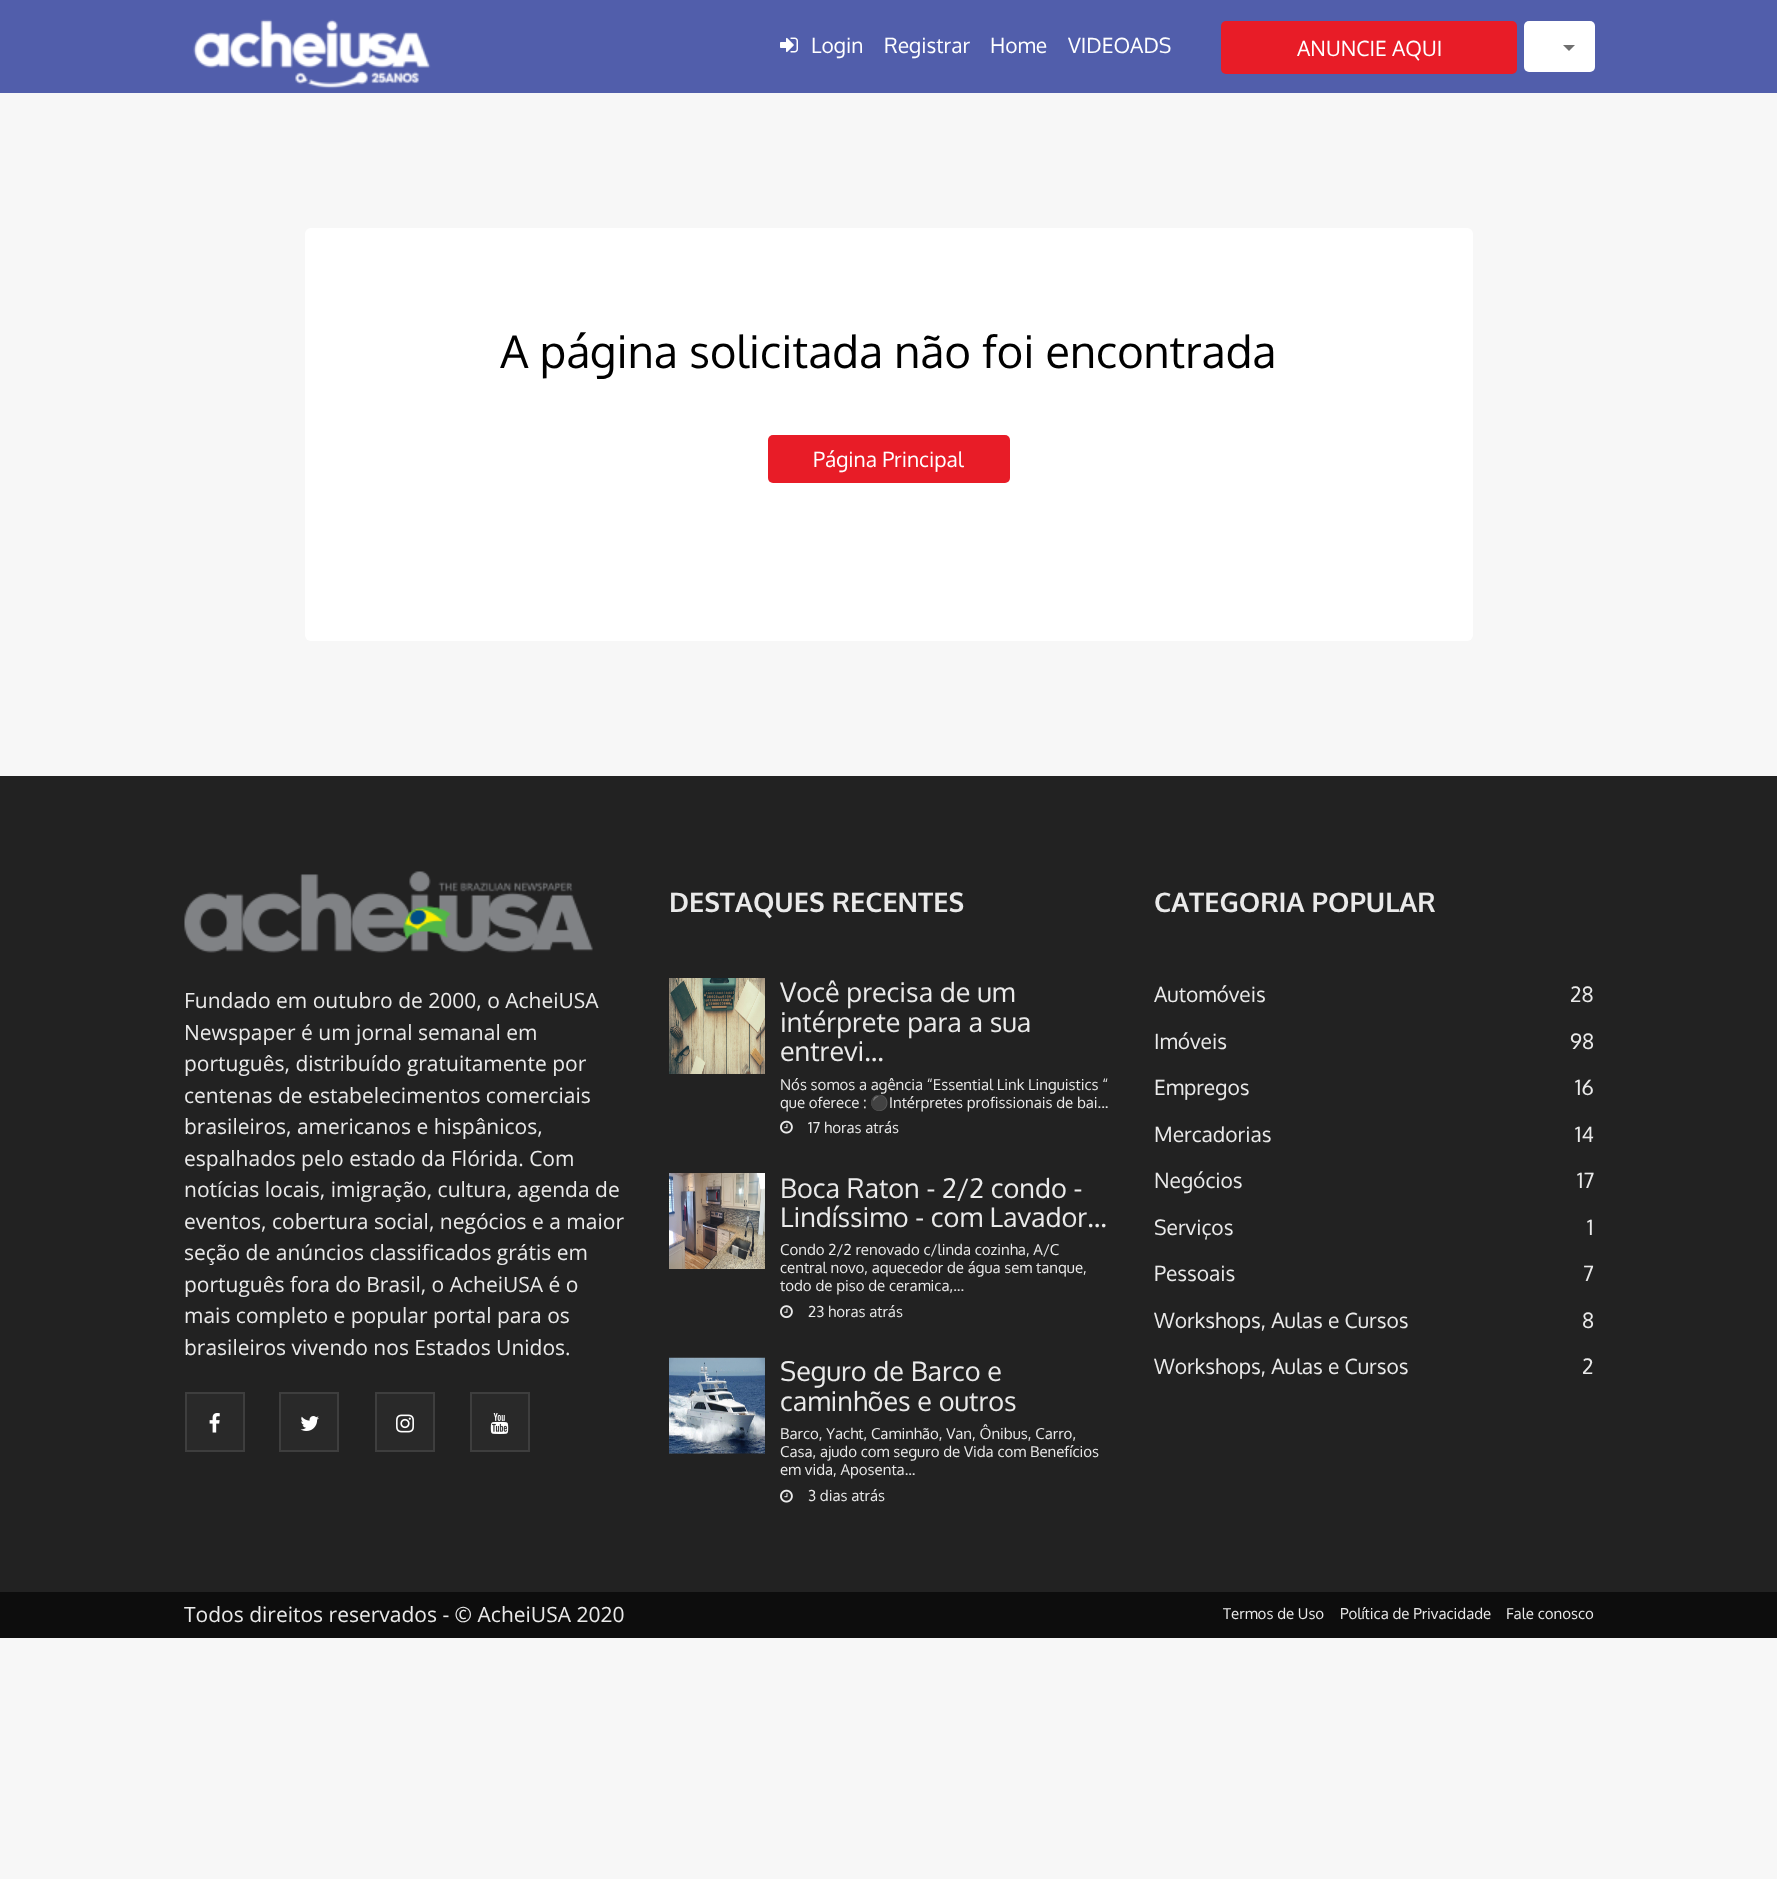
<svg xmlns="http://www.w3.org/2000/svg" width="1777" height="1879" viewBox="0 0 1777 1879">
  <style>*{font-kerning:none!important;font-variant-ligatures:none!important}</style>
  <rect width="100%" height="100%" fill="rgb(247,247,247)"/>
  <rect x="0" y="0" width="1777" height="93" fill="rgb(81,94,171)"/>
  <image x="193" y="19" width="238" height="70" href="pic1.png"/>
  <image x="780" y="37" width="18" height="16" href="pic2.png"/>
  <g font-family="Oxygen" font-size="21" fill="rgb(255,255,255)">
    <text x="811" y="53">Login</text>
    <text x="884" y="53">Registrar</text>
    <text x="990" y="53">Home</text>
    <text x="1068" y="53">VIDEOADS</text>
  </g>
  <rect x="1221" y="21" width="296" height="53" rx="5" fill="rgb(232,28,39)"/>
  <text x="1297" y="56" font-family="Oxygen" font-size="21" fill="rgb(255,255,255)">ANUNCIE AQUI</text>
  <rect x="1524" y="21" width="71" height="51" rx="5" fill="rgb(255,255,255)"/>
  <path d="M1563 45H1575L1569 51Z" fill="rgb(111,111,111)"/>
  <rect x="305" y="228" width="1168" height="413" rx="6" fill="rgb(255,255,255)"/>
  <text x="500" y="368" font-family="Oxygen" font-size="45" fill="rgb(0,0,0)">A página solicitada não foi encontrada</text>
  <rect x="768" y="435" width="242" height="48" rx="5" fill="rgb(232,28,39)"/>
  <text x="813" y="467" font-family="Oxygen" font-size="21" fill="rgb(255,255,255)">Página Principal</text>
  <rect x="0" y="776" width="1777" height="816" fill="rgb(34,34,34)"/>
  <image x="184" y="871" width="409" height="82" href="pic3.png"/>
  <g font-family="Open Sans" font-size="21" fill="rgb(234,234,234)">
    <text>
      <tspan x="184" y="1008">Fundado em outubro de 2000, o AcheiUSA</tspan>
      <tspan x="184" y="1040">Newspaper é um jornal semanal em</tspan>
      <tspan x="184" y="1071">português, distribuído gratuitamente por</tspan>
      <tspan x="184" y="1103">centenas de estabelecimentos comerciais</tspan>
      <tspan x="184" y="1134">brasileiros, americanos e hispânicos,</tspan>
      <tspan x="184" y="1166">espalhados pelo estado da Flórida. Com</tspan>
      <tspan x="184" y="1197">notícias locais, imigração, cultura, agenda de</tspan>
      <tspan x="184" y="1229">eventos, cobertura social, negócios e a maior</tspan>
      <tspan x="184" y="1260">seção de anúncios classificados grátis em</tspan>
      <tspan x="184" y="1292">português fora do Brasil, o AcheiUSA é o</tspan>
      <tspan x="184" y="1323">mais completo e popular portal para os</tspan>
      <tspan x="184" y="1355">brasileiros vivendo nos Estados Unidos.</tspan>
    </text>
  </g>
  <rect x="186" y="1393" width="58" height="58" fill="rgb(41,41,41)" stroke="rgb(62,62,62)" stroke-width="2"/>
  <image x="209" y="1413" width="11" height="20" href="pic4.png"/>
  <rect x="280" y="1393" width="58" height="58" fill="rgb(41,41,41)" stroke="rgb(62,62,62)" stroke-width="2"/>
  <image x="300" y="1416" width="19" height="15" href="pic5.png"/>
  <rect x="376" y="1393" width="58" height="58" fill="rgb(41,41,41)" stroke="rgb(62,62,62)" stroke-width="2"/>
  <image x="396" y="1414" width="18" height="19" href="pic6.png"/>
  <rect x="471" y="1393" width="58" height="58" fill="rgb(41,41,41)" stroke="rgb(62,62,62)" stroke-width="2"/>
  <image x="490" y="1413" width="19" height="21" href="pic7.png"/>
  <text x="669" y="912" font-family="Oxygen" font-size="27" font-weight="bold" fill="rgb(234,234,234)">DESTAQUES RECENTES</text>
  <image x="669" y="978" width="96" height="96" href="pic8.png"/>
  <g font-family="Oxygen" font-size="27" fill="rgb(234,234,234)">
    <text>
      <tspan x="780" y="1002">Você precisa de um</tspan>
      <tspan x="780" y="1032">intérprete para a sua</tspan>
      <tspan x="780" y="1061">entrevi...</tspan>
    </text>
  </g>
  <g font-family="Oxygen" font-size="15" fill="rgb(234,234,234)">
    <text>
      <tspan x="780" y="1090">Nós somos a agência “Essential Link Linguistics “</tspan>
      <tspan x="780" y="1108">que oferece :</tspan>
    </text>
  </g>
  <text x="870" y="1108" font-family="Noto Color Emoji" font-size="15" fill="rgb(234,234,234)">⚫</text>
  <text x="889" y="1108" font-family="Oxygen" font-size="15" fill="rgb(234,234,234)">Intérpretes profissionais de bai...</text>
  <image x="780" y="1120" width="13" height="14" href="pic9.png"/>
  <text x="808" y="1133" font-family="Oxygen" font-size="15" fill="rgb(234,234,234)">17 horas atrás</text>
  <image x="669" y="1173" width="96" height="96" href="pic10.png"/>
  <g font-family="Oxygen" font-size="27" fill="rgb(234,234,234)">
    <text>
      <tspan x="780" y="1198">Boca Raton - 2/2 condo -</tspan>
      <tspan x="780" y="1227">Lindíssimo - com Lavador...</tspan>
    </text>
  </g>
  <g font-family="Oxygen" font-size="15" fill="rgb(234,234,234)">
    <text>
      <tspan x="780" y="1255">Condo 2/2 renovado c/linda cozinha, A/C</tspan>
      <tspan x="780" y="1273">central novo, aquecedor de água sem tanque,</tspan>
      <tspan x="780" y="1291">todo de piso de ceramica,...</tspan>
    </text>
  </g>
  <image x="780" y="1305" width="13" height="14" href="pic11.png"/>
  <text x="808" y="1317" font-family="Oxygen" font-size="15" fill="rgb(234,234,234)">23 horas atrás</text>
  <image x="669" y="1357" width="96" height="97" href="pic12.png"/>
  <g font-family="Oxygen" font-size="27" fill="rgb(234,234,234)">
    <text>
      <tspan x="780" y="1381">Seguro de Barco e</tspan>
      <tspan x="780" y="1411">caminhões e outros</tspan>
    </text>
  </g>
  <g font-family="Oxygen" font-size="15" fill="rgb(234,234,234)">
    <text>
      <tspan x="780" y="1439">Barco, Yacht, Caminhão, Van, Ônibus, Carro,</tspan>
      <tspan x="780" y="1457">Casa, ajudo com seguro de Vida com Benefícios</tspan>
      <tspan x="780" y="1475">em vida, Aposenta...</tspan>
    </text>
  </g>
  <image x="780" y="1489" width="13" height="14" href="pic9.png"/>
  <text x="808" y="1501" font-family="Oxygen" font-size="15" fill="rgb(234,234,234)">3 dias atrás</text>
  <text x="1154" y="912" font-family="Oxygen" font-size="27" font-weight="bold" fill="rgb(234,234,234)">CATEGORIA POPULAR</text>
  <g font-family="Oxygen" font-size="21" fill="rgb(234,234,234)">
    <text x="1154" y="1002">Automóveis</text>
    <text x="1570" y="1002">28</text>
    <text x="1154" y="1049">Imóveis</text>
    <text x="1570" y="1049">98</text>
    <text x="1154" y="1095">Empregos</text>
    <text x="1575" y="1095">16</text>
    <text x="1154" y="1142">Mercadorias</text>
    <text x="1575" y="1142">14</text>
    <text x="1154" y="1188">Negócios</text>
    <text x="1577" y="1188">17</text>
    <text x="1154" y="1235">Serviços</text>
    <text x="1587" y="1235">1</text>
    <text x="1154" y="1281">Pessoais</text>
    <text x="1583" y="1281">7</text>
    <text x="1154" y="1328">Workshops, Aulas e Cursos</text>
    <text x="1582" y="1328">8</text>
    <text x="1154" y="1374">Workshops, Aulas e Cursos</text>
    <text x="1582" y="1374">2</text>
  </g>
  <rect x="0" y="1592" width="1777" height="46" fill="rgb(13,13,13)"/>
  <text x="184" y="1622" font-family="Open Sans" font-size="21" fill="rgb(234,234,234)">Todos direitos reservados - © AcheiUSA 2020</text>
  <g font-family="Oxygen" font-size="15" fill="rgb(234,234,234)">
    <text x="1223" y="1619">Termos de Uso</text>
    <text x="1340" y="1619">Política de Privacidade</text>
    <text x="1506" y="1619">Fale conosco</text>
  </g>
</svg>
